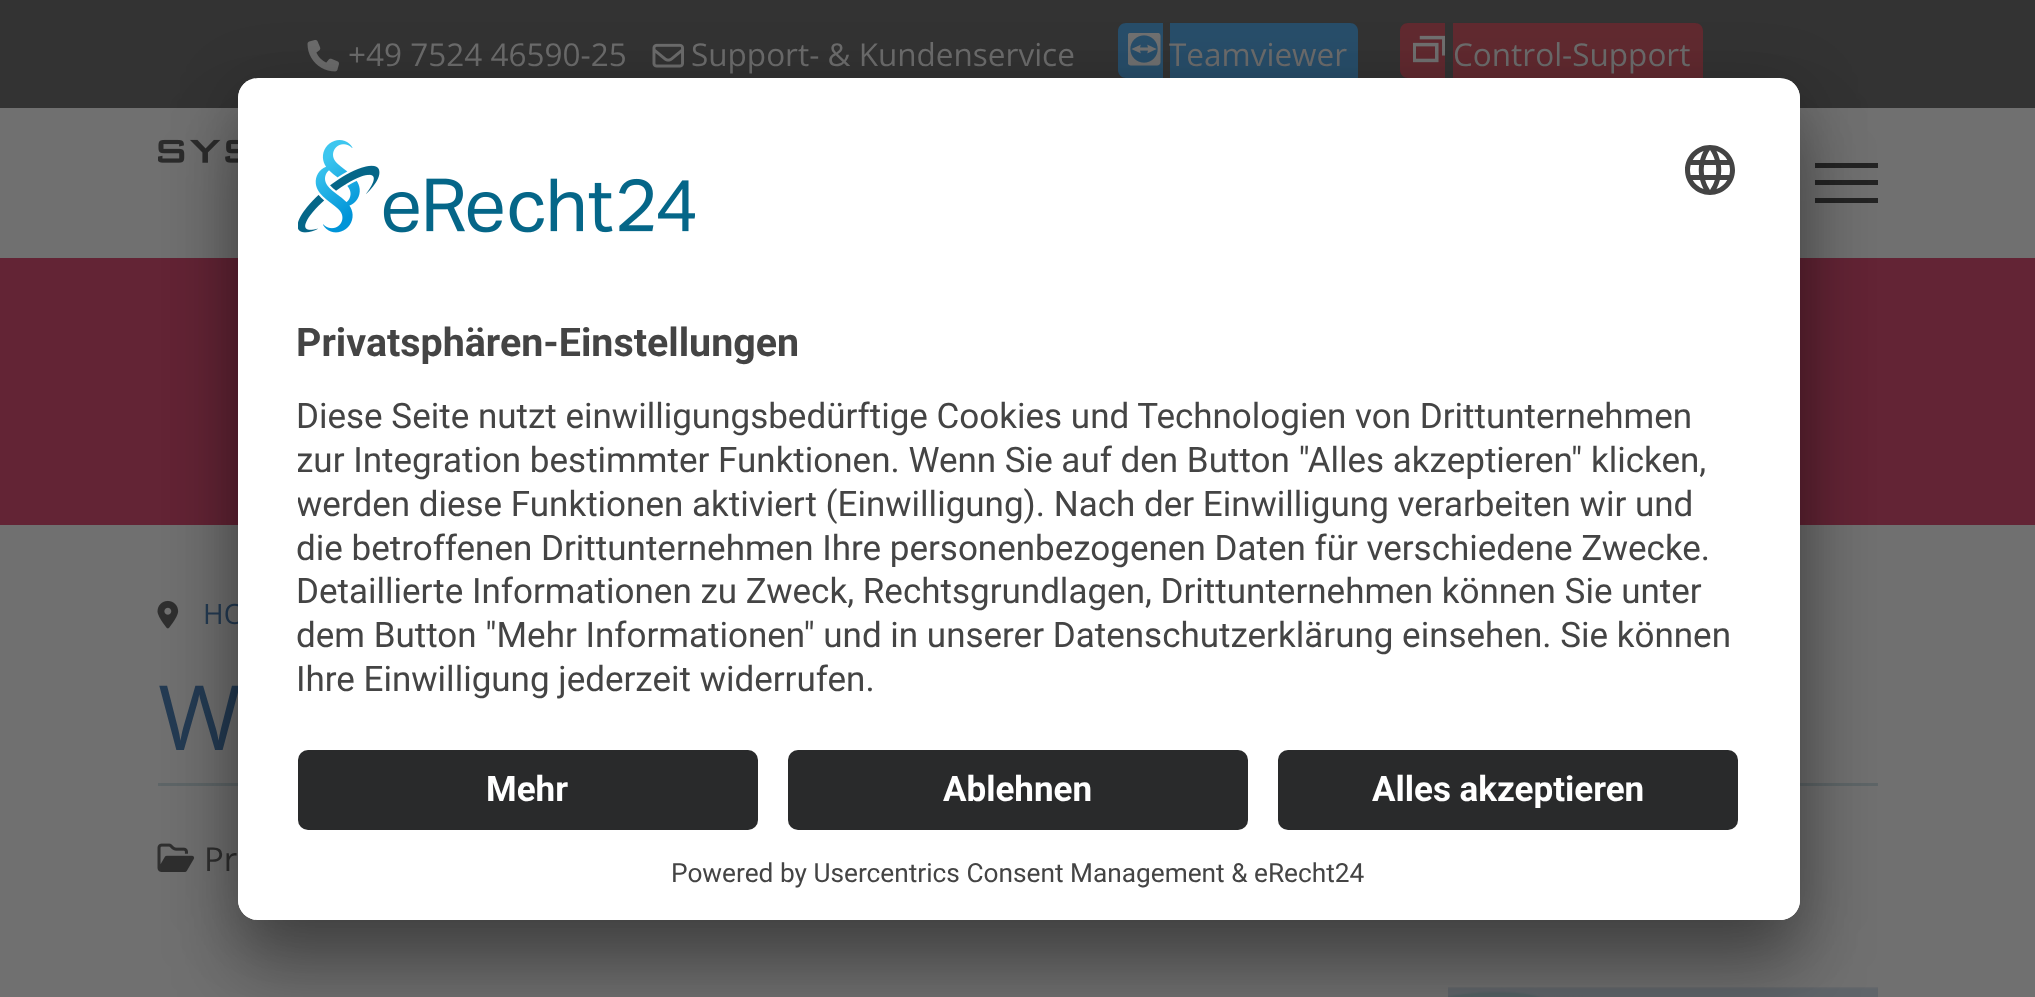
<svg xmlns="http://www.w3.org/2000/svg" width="2035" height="997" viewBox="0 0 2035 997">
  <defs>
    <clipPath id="clip1"><rect x="238" y="78" width="1562" height="842" rx="20"/></clipPath>
    <clipPath id="clip2"><path d="M258 78H1780C1791 78 1800 87 1800 98V730H238V98C238 87 247 78 258 78Z"/></clipPath>
    <clipPath id="clip3"><rect x="298" y="385" width="1442" height="328"/></clipPath>
  </defs>
  <rect width="100%" height="100%" fill="rgb(112,112,112)"/>
  <rect x="0" y="0" width="2035" height="108" fill="rgb(51,51,51)"/>
  <image x="307" y="39" width="32" height="33" href="pic1.png"/>
  <text x="348" y="66" font-family="Open Sans" font-size="31.5" fill="rgb(108,108,108)">+49 7524 46590-25</text>
  <image x="652" y="43" width="32" height="25" href="pic2.png"/>
  <text x="691" y="66" font-family="Open Sans" font-size="31.5" fill="rgb(108,108,108)">Support- &amp; Kundenservice</text>
  <path d="M1126 23H1163V78H1126C1121.5 78 1118 74.5 1118 70V31C1118 26.5 1121.5 23 1126 23Z" fill="rgb(40,78,106)"/>
  <path d="M1170 23H1350C1354.5 23 1358 26.5 1358 31V80C1358 84.5 1354.5 88 1350 88H1170Z" fill="rgb(40,78,106)"/>
  <image x="1128" y="33" width="33" height="33" href="pic3.png"/>
  <text x="1169" y="66" font-family="Open Sans" font-size="31.5" fill="rgb(108,108,108)">Teamviewer</text>
  <path d="M1408 23H1445V78H1408C1403.5 78 1400 74.5 1400 70V31C1400 26.5 1403.5 23 1408 23Z" fill="rgb(97,42,48)"/>
  <path d="M1453 23H1695C1699.5 23 1703 26.5 1703 31V80C1703 84.5 1699.5 88 1695 88H1453Z" fill="rgb(97,42,48)"/>
  <image x="1413" y="35" width="32" height="28" href="pic4.png"/>
  <text x="1453" y="66" font-family="Open Sans" font-size="31.5" fill="rgb(108,108,108)">Control-Support</text>
  <image x="158" y="139" width="80" height="24" href="pic5.png"/>
  <rect x="1815" y="163" width="63" height="5" fill="rgb(36,36,36)"/>
  <rect x="1815" y="180" width="63" height="5" fill="rgb(36,36,36)"/>
  <rect x="1815" y="198" width="63" height="5" fill="rgb(36,36,36)"/>
  <rect x="0" y="258" width="2035" height="267" fill="rgb(99,36,53)"/>
  <image x="157" y="600" width="22" height="29" href="pic6.png"/>
  <text x="203" y="624" font-family="Open Sans" font-size="28" fill="rgb(36,59,83)">HO</text>
  <rect x="158" y="783" width="1720" height="3" fill="rgb(94,101,103)"/>
  <text x="158" y="750" font-family="Open Sans" font-size="90" fill="rgb(36,59,83)">W</text>
  <image x="157" y="843" width="38" height="29" href="pic7.png"/>
  <text x="204" y="871" font-family="Open Sans" font-size="33" fill="rgb(47,47,47)">Pr</text>
  <image x="1448" y="987" width="430" height="10" href="pic8.png"/>
  <rect x="238" y="128" width="1562" height="842" rx="20" fill="rgba(0,0,0,0.3)" filter="blur(35px)"/>
  <rect x="238" y="90" width="1562" height="843" rx="20" fill="rgba(0,0,0,0.22)" filter="blur(32.5px)"/>
  <rect x="238" y="78" width="1562" height="842" rx="20" fill="rgb(255,255,255)"/>
  <g clip-path="url(#clip1)">
    <g clip-path="url(#clip2)">
      <rect x="238" y="80" width="1562" height="650" fill="rgb(255,255,255)"/>
    </g>
  </g>
  <image x="298" y="140" width="397" height="93" href="pic9.png"/>
  <image x="1685" y="145" width="50" height="50" href="pic10.png"/>
  <text x="296" y="356" font-family="Roboto" font-size="39.4" font-weight="bold" fill="rgb(68,68,68)">Privatsphären-Einstellungen</text>
  <text x="296" y="428" font-family="Roboto" font-size="35" fill="rgb(68,68,68)">Diese Seite nutzt einwilligungsbedürftige Cookies und Technologien von Drittunternehmen</text>
  <g clip-path="url(#clip3)">
    <g font-family="Roboto" font-size="35" fill="rgb(68,68,68)">
      <text>
        <tspan x="296" y="472">zur Integration bestimmter Funktionen. Wenn Sie auf den Button "Alles akzeptieren" klicken,</tspan>
        <tspan x="296" y="516">werden diese Funktionen aktiviert (Einwilligung). Nach der Einwilligung verarbeiten wir und</tspan>
      </text>
    </g>
  </g>
  <g font-family="Roboto" font-size="35" fill="rgb(68,68,68)">
    <text>
      <tspan x="296" y="560">die betroffenen Drittunternehmen Ihre personenbezogenen Daten für verschiedene Zwecke.</tspan>
      <tspan x="296" y="603">Detaillierte Informationen zu Zweck, Rechtsgrundlagen, Drittunternehmen können Sie unter</tspan>
      <tspan x="296" y="647">dem Button "Mehr Informationen" und in unserer Datenschutzerklärung einsehen. Sie können</tspan>
      <tspan x="296" y="691">Ihre Einwilligung jederzeit widerrufen.</tspan>
    </text>
  </g>
  <path d="M238 730H1800V900C1800 911 1791 920 1780 920H258C247 920 238 911 238 900Z" fill="rgb(255,255,255)"/>
  <rect x="298" y="750" width="460" height="80" rx="10" fill="rgb(41,42,43)"/>
  <text x="486" y="801" font-family="Roboto" font-size="35" font-weight="bold" fill="rgb(255,255,255)">Mehr</text>
  <rect x="788" y="750" width="460" height="80" rx="10" fill="rgb(41,42,43)"/>
  <text x="943" y="801" font-family="Roboto" font-size="35" font-weight="bold" fill="rgb(255,255,255)">Ablehnen</text>
  <rect x="1278" y="750" width="460" height="80" rx="10" fill="rgb(41,42,43)"/>
  <text x="1372" y="801" font-family="Roboto" font-size="35" font-weight="bold" fill="rgb(255,255,255)">Alles akzeptieren</text>
  <text x="671" y="882" font-family="Roboto" font-size="26.25" fill="rgb(68,68,68)">Powered by Usercentrics Consent Management &amp; eRecht24</text>
</svg>
